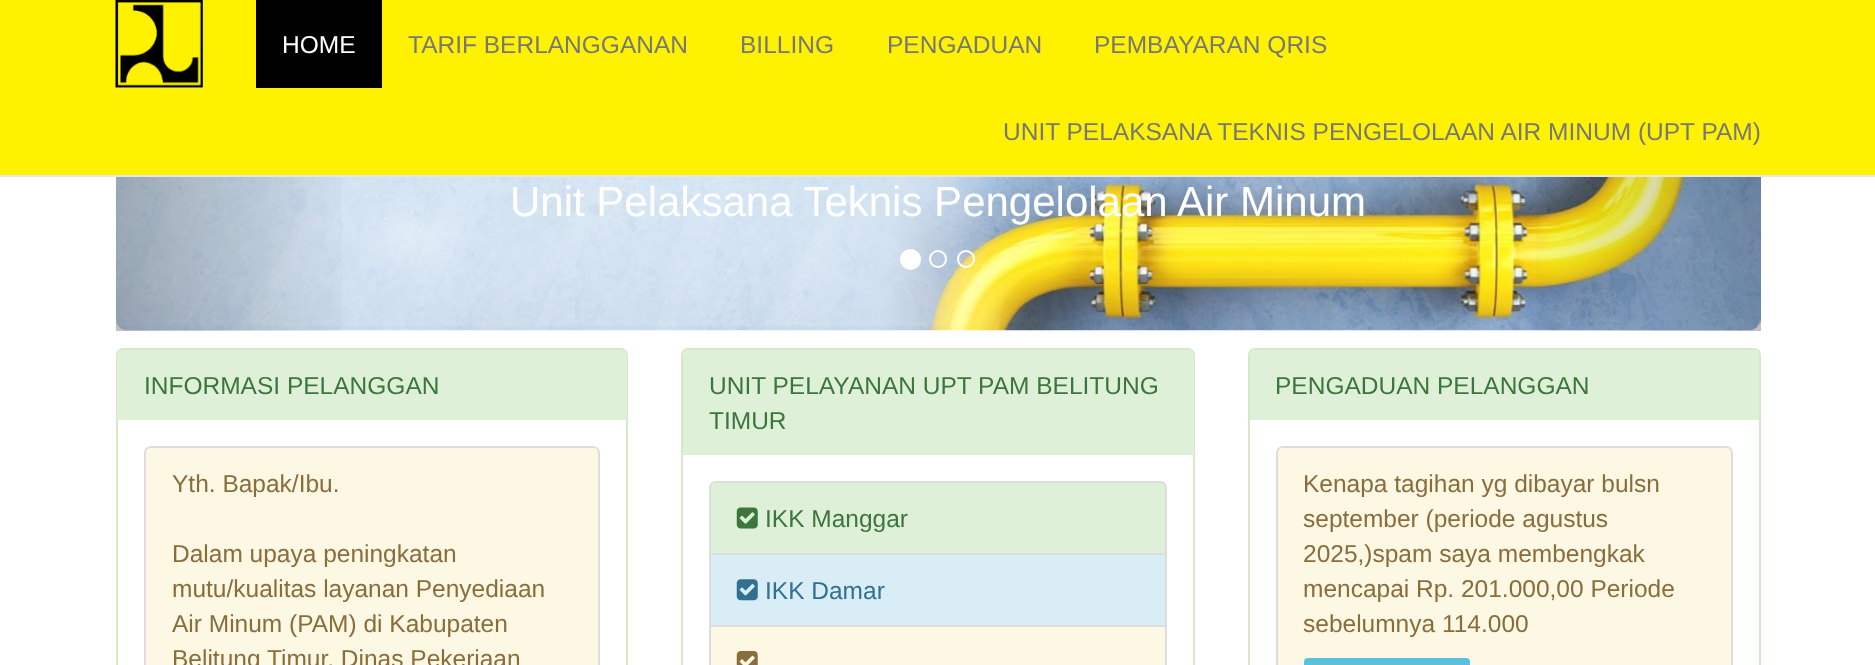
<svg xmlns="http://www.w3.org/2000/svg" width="1875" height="665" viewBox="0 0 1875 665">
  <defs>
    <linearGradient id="g1" gradientUnits="userSpaceOnUse" x1="115" y1="32" x2="362" y2="31"><stop offset="0" stop-color="rgb(0,0,0)" stop-opacity="0.25"/><stop offset="1" stop-color="rgb(0,0,0)" stop-opacity="0"/></linearGradient>
    <linearGradient id="g2" gradientUnits="userSpaceOnUse" x1="1514" y1="32" x2="1761" y2="31"><stop offset="0" stop-color="rgb(0,0,0)" stop-opacity="0"/><stop offset="1" stop-color="rgb(0,0,0)" stop-opacity="0.25"/></linearGradient>
  </defs>
  <rect width="100%" height="100%" fill="rgb(255,255,255)"/>
  <rect x="0" y="0" width="1875" height="175" fill="rgb(255,242,0)"/>
  <rect x="0" y="175" width="1875" height="2" fill="rgb(231,231,231)"/>
  <image x="115" y="0" width="88" height="88" href="pic1.png"/>
  <rect x="256" y="0" width="126" height="88" fill="rgb(0,0,0)"/>
  <text x="282" y="53" font-family="Liberation Sans" font-size="24.5" fill="rgb(255,255,255)">HOME</text>
  <g font-family="Liberation Sans" font-size="24.5" fill="rgb(119,119,119)">
    <text x="408" y="53">TARIF BERLANGGANAN</text>
    <text x="740" y="53">BILLING</text>
    <text x="887" y="53">PENGADUAN</text>
    <text x="1094" y="53">PEMBAYARAN QRIS</text>
    <text x="1003" y="140">UNIT PELAKSANA TEKNIS PENGELOLAAN AIR MINUM (UPT PAM)</text>
  </g>
  <image x="116" y="177" width="1645" height="154" href="pic2.png"/>
  <rect x="116" y="177" width="226" height="154" fill="url(#g1)"/>
  <text x="510" y="216" font-family="Liberation Sans" font-size="42" fill="rgb(255,255,255)">Unit Pelaksana Teknis Pengelolaan Air Minum</text>
  <rect x="1536" y="177" width="225" height="154" fill="url(#g2)"/>
  <circle cx="910.5" cy="259.5" r="9.5" fill="rgb(255,255,255)" stroke="rgb(255,255,255)" stroke-width="2"/>
  <circle cx="938" cy="259" r="8" fill="none" stroke="rgb(255,255,255)" stroke-width="2"/>
  <circle cx="966" cy="259" r="8" fill="none" stroke="rgb(255,255,255)" stroke-width="2"/>
  <rect x="117" y="349" width="510" height="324" rx="6" fill="none" stroke="rgb(214,233,198)" stroke-width="2"/>
  <path d="M122 350H622C625 350 627 352 627 355V420H117V355C117 352 119 350 122 350Z" fill="rgb(223,240,216)"/>
  <text x="144" y="394" font-family="Liberation Sans" font-size="24.5" fill="rgb(60,118,61)">INFORMASI PELANGGAN</text>
  <path d="M151 447H593C596.5 447 599 449.5 599 453V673H145V453C145 449.5 147.5 447 151 447Z" fill="rgb(252,248,227)" stroke="rgb(221,221,221)" stroke-width="2"/>
  <g font-family="Liberation Sans" font-size="24.5" fill="rgb(138,109,59)">
    <text x="172" y="492">Yth. Bapak/Ibu.</text>
    <text>
      <tspan x="172" y="562">Dalam upaya peningkatan</tspan>
      <tspan x="172" y="597">mutu/kualitas layanan Penyediaan</tspan>
      <tspan x="172" y="632">Air Minum (PAM) di Kabupaten</tspan>
      <tspan x="172" y="667">Belitung Timur, Dinas Pekerjaan</tspan>
    </text>
  </g>
  <rect x="682" y="349" width="512" height="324" rx="6" fill="none" stroke="rgb(214,233,198)" stroke-width="2"/>
  <path d="M688 350H1189C1192 350 1194 352 1194 355V455H683V355C683 352 685 350 688 350Z" fill="rgb(223,240,216)"/>
  <g font-family="Liberation Sans" font-size="24.5" fill="rgb(60,118,61)">
    <text>
      <tspan x="709" y="394">UNIT PELAYANAN UPT PAM BELITUNG</tspan>
      <tspan x="709" y="429">TIMUR</tspan>
    </text>
  </g>
  <path d="M716 482H1160C1163.5 482 1166 484.5 1166 488V554H710V488C710 484.5 712.5 482 716 482Z" fill="rgb(223,240,216)" stroke="rgb(221,221,221)" stroke-width="2"/>
  <image x="736" y="507" width="22" height="22" href="pic3.png"/>
  <text x="765" y="527" font-family="Liberation Sans" font-size="24.5" fill="rgb(60,118,61)">IKK Manggar</text>
  <rect x="710" y="554" width="456" height="72" fill="rgb(217,237,247)" stroke="rgb(221,221,221)" stroke-width="2"/>
  <image x="736" y="579" width="22" height="22" href="pic4.png"/>
  <text x="765" y="599" font-family="Liberation Sans" font-size="24.5" fill="rgb(49,112,143)">IKK Damar</text>
  <rect x="710" y="626" width="456" height="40" fill="rgb(252,248,227)" stroke="rgb(221,221,221)" stroke-width="2"/>
  <image x="736" y="651" width="22" height="14" href="pic5.png"/>
  <rect x="1249" y="349" width="511" height="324" rx="6" fill="none" stroke="rgb(214,233,198)" stroke-width="2"/>
  <path d="M1255 350H1754C1757 350 1759 352 1759 355V420H1250V355C1250 352 1252 350 1255 350Z" fill="rgb(223,240,216)"/>
  <text x="1275" y="394" font-family="Liberation Sans" font-size="24.5" fill="rgb(60,118,61)">PENGADUAN PELANGGAN</text>
  <path d="M1283 447H1726C1729.5 447 1732 449.5 1732 453V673H1277V453C1277 449.5 1279.5 447 1283 447Z" fill="rgb(252,248,227)" stroke="rgb(221,221,221)" stroke-width="2"/>
  <g font-family="Liberation Sans" font-size="24.5" fill="rgb(138,109,59)">
    <text>
      <tspan x="1303" y="492">Kenapa tagihan yg dibayar bulsn</tspan>
      <tspan x="1303" y="527">september (periode agustus</tspan>
      <tspan x="1303" y="562">2025,)spam saya membengkak</tspan>
      <tspan x="1303" y="597">mencapai Rp. 201.000,00 Periode</tspan>
      <tspan x="1303" y="632">sebelumnya 114.000</tspan>
    </text>
  </g>
  <rect x="1304" y="658" width="166" height="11" rx="4" fill="rgb(91,192,222)"/>
</svg>
